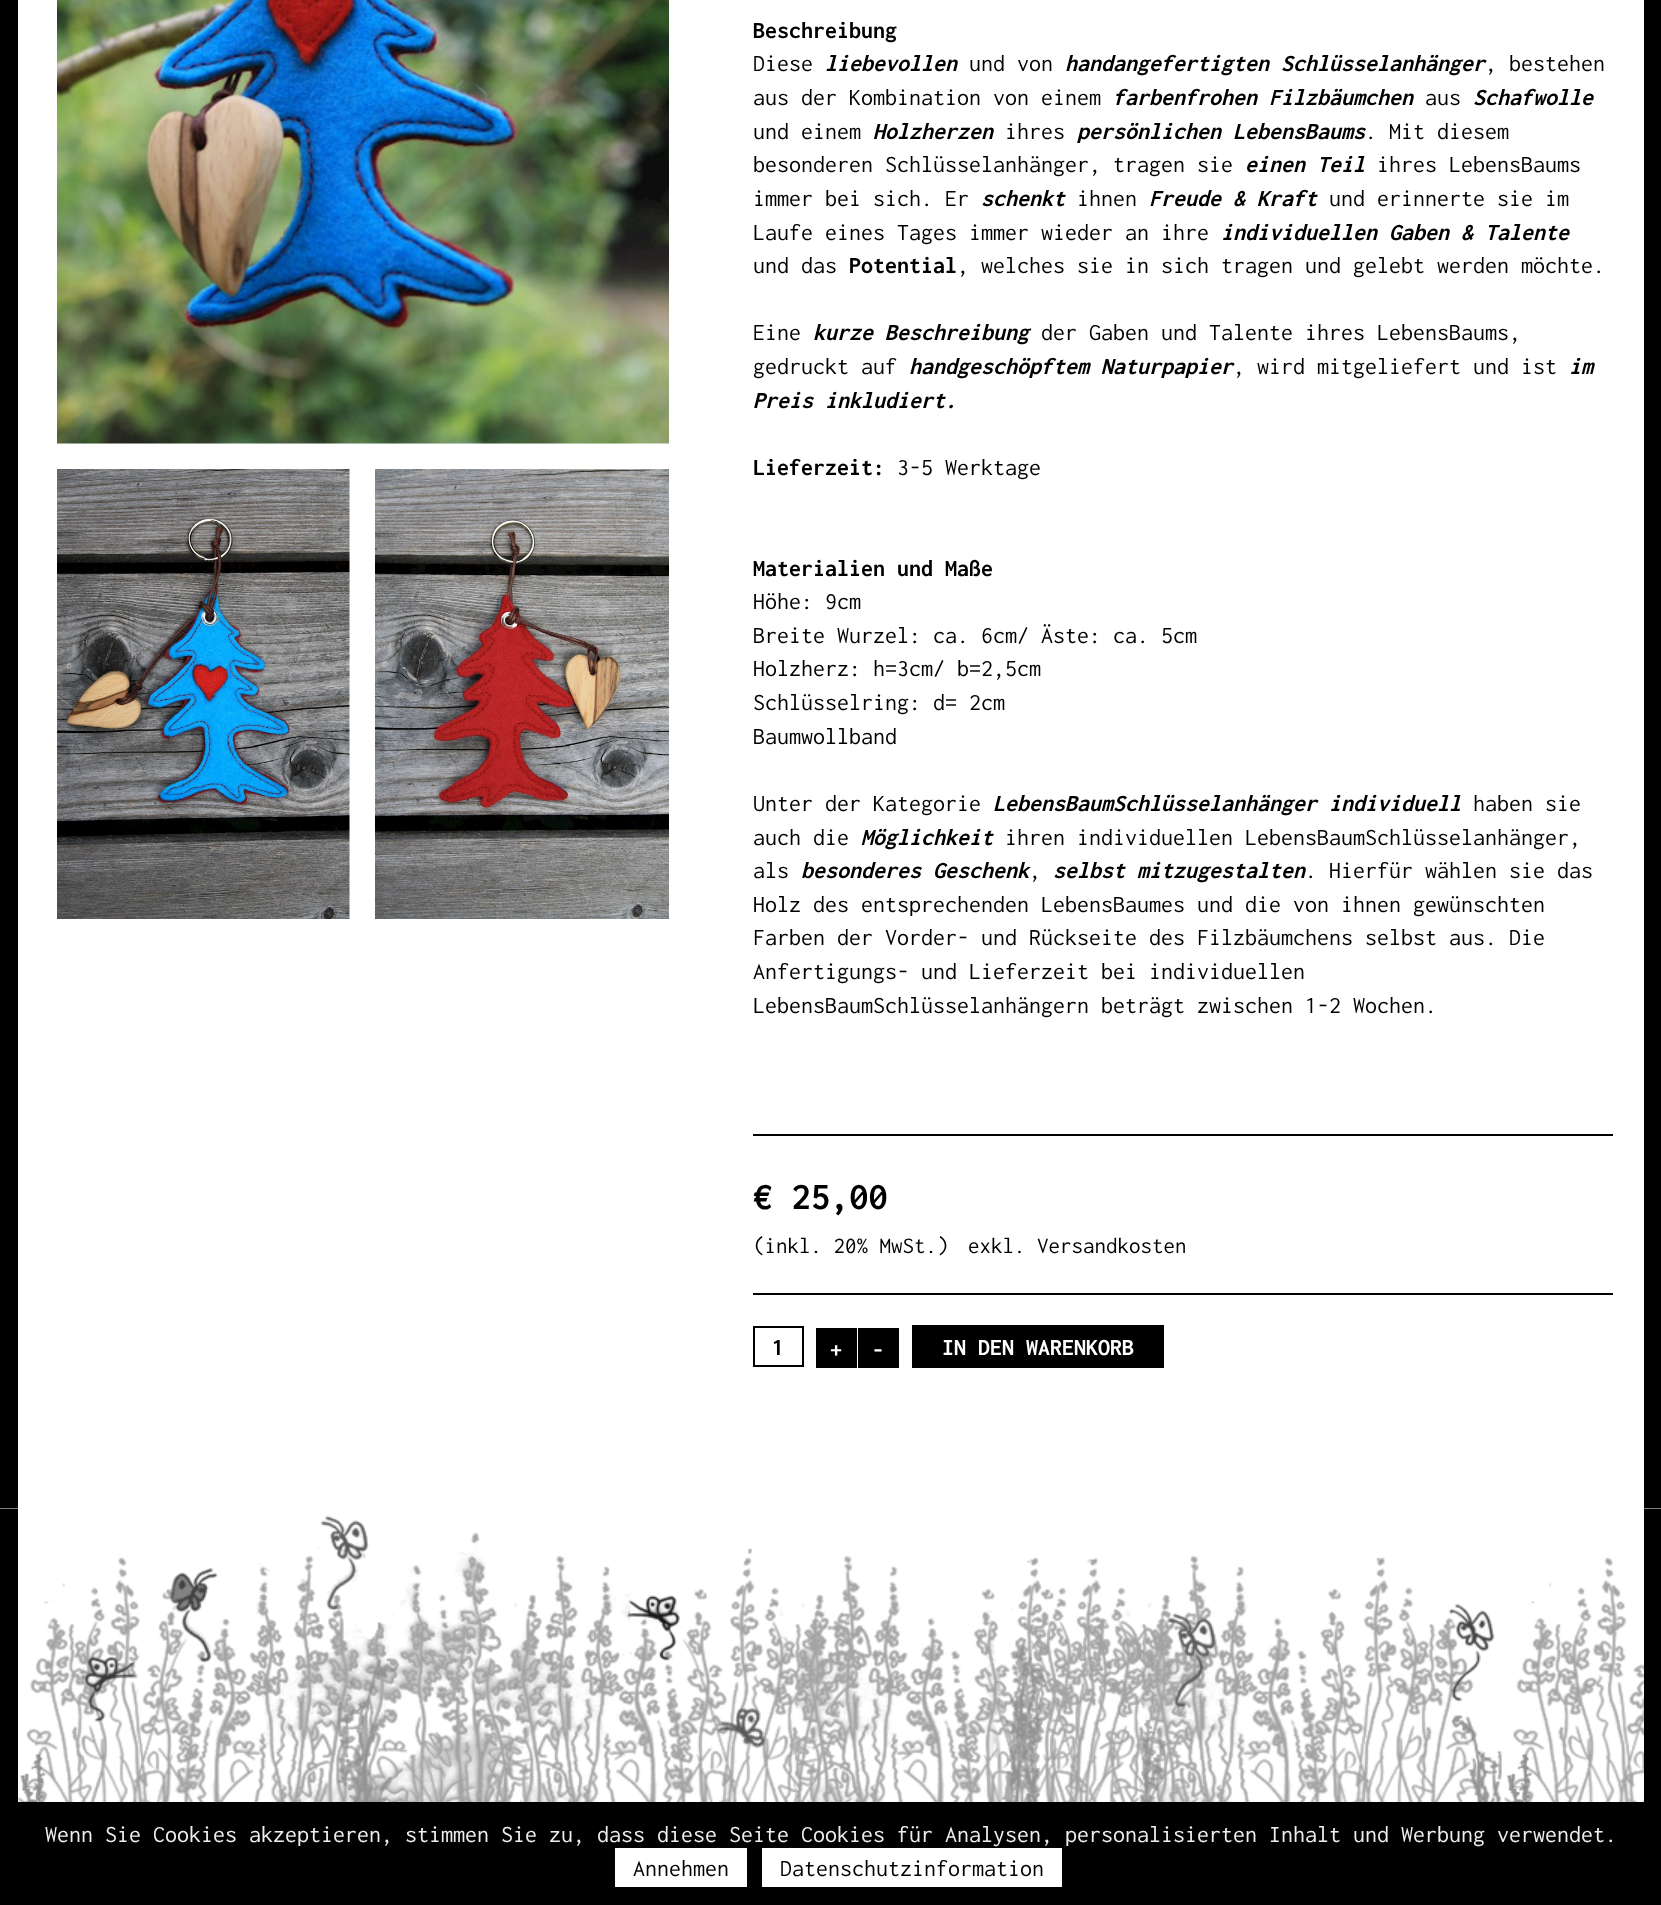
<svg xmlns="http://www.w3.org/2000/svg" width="1661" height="1905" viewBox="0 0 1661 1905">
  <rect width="100%" height="100%" fill="rgb(255,255,255)"/>
  <rect x="1644" y="0" width="17" height="1509" fill="rgb(0,0,0)"/>
  <rect x="0" y="0" width="18" height="1509" fill="rgb(0,0,0)"/>
  <image x="57" y="0" width="612" height="444" href="pic1.png"/>
  <image x="57" y="469" width="293" height="450" href="pic2.png"/>
  <image x="375" y="469" width="294" height="450" href="pic3.png"/>
  <text x="753" y="38" font-family="Inconsolata" font-size="24" font-weight="bold" fill="rgb(0,0,0)">Beschreibung</text>
  <text x="753" y="71" font-family="Inconsolata" font-size="24" fill="rgb(0,0,0)">Diese</text>
  <text x="825" y="71" font-family="Inconsolata" font-size="24" font-weight="bold" font-style="italic" fill="rgb(0,0,0)">liebevollen</text>
  <text x="969" y="71" font-family="Inconsolata" font-size="24" fill="rgb(0,0,0)">und von</text>
  <text x="1065" y="71" font-family="Inconsolata" font-size="24" font-weight="bold" font-style="italic" fill="rgb(0,0,0)">handangefertigten Schlüsselanhänger</text>
  <g font-family="Inconsolata" font-size="24" fill="rgb(0,0,0)">
    <text x="1485" y="71">, bestehen</text>
    <text x="753" y="105">aus der Kombination von einem</text>
  </g>
  <text x="1113" y="105" font-family="Inconsolata" font-size="24" font-weight="bold" font-style="italic" fill="rgb(0,0,0)">farbenfrohen Filzbäumchen</text>
  <text x="1425" y="105" font-family="Inconsolata" font-size="24" fill="rgb(0,0,0)">aus</text>
  <text x="1473" y="105" font-family="Inconsolata" font-size="24" font-weight="bold" font-style="italic" fill="rgb(0,0,0)">Schafwolle</text>
  <text x="753" y="139" font-family="Inconsolata" font-size="24" fill="rgb(0,0,0)">und einem</text>
  <text x="873" y="139" font-family="Inconsolata" font-size="24" font-weight="bold" font-style="italic" fill="rgb(0,0,0)">Holzherzen</text>
  <text x="1005" y="139" font-family="Inconsolata" font-size="24" fill="rgb(0,0,0)">ihres</text>
  <text x="1077" y="139" font-family="Inconsolata" font-size="24" font-weight="bold" font-style="italic" fill="rgb(0,0,0)">persönlichen LebensBaums</text>
  <g font-family="Inconsolata" font-size="24" fill="rgb(0,0,0)">
    <text x="1365" y="139">. Mit diesem</text>
    <text x="753" y="172">besonderen Schlüsselanhänger, tragen sie</text>
  </g>
  <text x="1245" y="172" font-family="Inconsolata" font-size="24" font-weight="bold" font-style="italic" fill="rgb(0,0,0)">einen Teil</text>
  <g font-family="Inconsolata" font-size="24" fill="rgb(0,0,0)">
    <text x="1377" y="172">ihres LebensBaums</text>
    <text x="753" y="206">immer bei sich. Er</text>
  </g>
  <text x="981" y="206" font-family="Inconsolata" font-size="24" font-weight="bold" font-style="italic" fill="rgb(0,0,0)">schenkt</text>
  <text x="1077" y="206" font-family="Inconsolata" font-size="24" fill="rgb(0,0,0)">ihnen</text>
  <text x="1149" y="206" font-family="Inconsolata" font-size="24" font-weight="bold" font-style="italic" fill="rgb(0,0,0)">Freude &amp; Kraft</text>
  <g font-family="Inconsolata" font-size="24" fill="rgb(0,0,0)">
    <text x="1329" y="206">und erinnerte sie im</text>
    <text x="753" y="240">Laufe eines Tages immer wieder an ihre</text>
  </g>
  <text x="1221" y="240" font-family="Inconsolata" font-size="24" font-weight="bold" font-style="italic" fill="rgb(0,0,0)">individuellen Gaben &amp; Talente</text>
  <text x="753" y="273" font-family="Inconsolata" font-size="24" fill="rgb(0,0,0)">und das</text>
  <text x="849" y="273" font-family="Inconsolata" font-size="24" font-weight="bold" fill="rgb(0,0,0)">Potential</text>
  <g font-family="Inconsolata" font-size="24" fill="rgb(0,0,0)">
    <text x="957" y="273">, welches sie in sich tragen und gelebt werden möchte.</text>
    <text x="753" y="340">Eine</text>
  </g>
  <text x="813" y="340" font-family="Inconsolata" font-size="24" font-weight="bold" font-style="italic" fill="rgb(0,0,0)">kurze Beschreibung</text>
  <g font-family="Inconsolata" font-size="24" fill="rgb(0,0,0)">
    <text x="1041" y="340">der Gaben und Talente ihres LebensBaums,</text>
    <text x="753" y="374">gedruckt auf</text>
  </g>
  <text x="909" y="374" font-family="Inconsolata" font-size="24" font-weight="bold" font-style="italic" fill="rgb(0,0,0)">handgeschöpftem Naturpapier</text>
  <text x="1233" y="374" font-family="Inconsolata" font-size="24" fill="rgb(0,0,0)">, wird mitgeliefert und ist</text>
  <g font-family="Inconsolata" font-size="24" font-weight="bold" font-style="italic" fill="rgb(0,0,0)">
    <text x="1569" y="374">im</text>
    <text x="753" y="408">Preis inkludiert.</text>
  </g>
  <text x="753" y="475" font-family="Inconsolata" font-size="24" font-weight="bold" fill="rgb(0,0,0)">Lieferzeit:</text>
  <text x="897" y="475" font-family="Inconsolata" font-size="24" fill="rgb(0,0,0)">3-5 Werktage</text>
  <text x="753" y="576" font-family="Inconsolata" font-size="24" font-weight="bold" fill="rgb(0,0,0)">Materialien und Maße</text>
  <g font-family="Inconsolata" font-size="24" fill="rgb(0,0,0)">
    <text>
      <tspan x="753" y="609">Höhe: 9cm</tspan>
      <tspan x="753" y="643">Breite Wurzel: ca. 6cm/ Äste: ca. 5cm</tspan>
      <tspan x="753" y="676">Holzherz: h=3cm/ b=2,5cm</tspan>
      <tspan x="753" y="710">Schlüsselring: d= 2cm</tspan>
      <tspan x="753" y="744">Baumwollband</tspan>
    </text>
    <text x="753" y="811">Unter der Kategorie</text>
  </g>
  <text x="993" y="811" font-family="Inconsolata" font-size="24" font-weight="bold" font-style="italic" fill="rgb(0,0,0)">LebensBaumSchlüsselanhänger individuell</text>
  <g font-family="Inconsolata" font-size="24" fill="rgb(0,0,0)">
    <text x="1473" y="811">haben sie</text>
    <text x="753" y="845">auch die</text>
  </g>
  <text x="861" y="845" font-family="Inconsolata" font-size="24" font-weight="bold" font-style="italic" fill="rgb(0,0,0)">Möglichkeit</text>
  <g font-family="Inconsolata" font-size="24" fill="rgb(0,0,0)">
    <text x="1005" y="845">ihren individuellen LebensBaumSchlüsselanhänger,</text>
    <text x="753" y="878">als</text>
  </g>
  <text x="801" y="878" font-family="Inconsolata" font-size="24" font-weight="bold" font-style="italic" fill="rgb(0,0,0)">besonderes Geschenk</text>
  <text x="1029" y="878" font-family="Inconsolata" font-size="24" fill="rgb(0,0,0)">,</text>
  <text x="1053" y="878" font-family="Inconsolata" font-size="24" font-weight="bold" font-style="italic" fill="rgb(0,0,0)">selbst mitzugestalten</text>
  <g font-family="Inconsolata" font-size="24" fill="rgb(0,0,0)">
    <text x="1305" y="878">. Hierfür wählen sie das</text>
    <text>
      <tspan x="753" y="912">Holz des entsprechenden LebensBaumes und die von ihnen gewünschten</tspan>
      <tspan x="753" y="945">Farben der Vorder- und Rückseite des Filzbäumchens selbst aus. Die</tspan>
      <tspan x="753" y="979">Anfertigungs- und Lieferzeit bei individuellen</tspan>
      <tspan x="753" y="1013">LebensBaumSchlüsselanhängern beträgt zwischen 1-2 Wochen.</tspan>
    </text>
  </g>
  <rect x="753" y="1134" width="860" height="2" fill="rgb(0,0,0)"/>
  <rect x="753" y="1293" width="860" height="2" fill="rgb(0,0,0)"/>
  <text x="753" y="1209" font-family="Inconsolata" font-size="38.5" font-weight="bold" fill="rgb(0,0,0)">€ 25,00</text>
  <g font-family="Inconsolata" font-size="23" fill="rgb(0,0,0)">
    <text x="753" y="1253">(inkl. 20% MwSt.)</text>
    <text x="968" y="1253">exkl. Versandkosten</text>
  </g>
  <rect x="754" y="1327" width="49" height="39" fill="none" stroke="rgb(0,0,0)" stroke-width="2"/>
  <text x="772" y="1355" font-family="Inconsolata" font-size="24" font-weight="bold" fill="rgb(0,0,0)">1</text>
  <rect x="816" y="1328" width="41" height="40" fill="rgb(0,0,0)"/>
  <text x="830" y="1358" font-family="Inconsolata" font-size="24" font-weight="bold" fill="rgb(255,255,255)">+</text>
  <rect x="858" y="1328" width="41" height="40" fill="rgb(0,0,0)"/>
  <text x="872" y="1358" font-family="Inconsolata" font-size="24" font-weight="bold" fill="rgb(255,255,255)">-</text>
  <rect x="912" y="1325" width="252" height="43" fill="rgb(0,0,0)"/>
  <text x="942" y="1355" font-family="Inconsolata" font-size="24" font-weight="bold" fill="rgb(255,255,255)">IN DEN WARENKORB</text>
  <image x="0" y="1508" width="1661" height="294" href="pic4.png"/>
  <rect x="1644" y="1509" width="17" height="293" fill="rgb(0,0,0)"/>
  <rect x="0" y="1509" width="18" height="293" fill="rgb(0,0,0)"/>
  <image x="317" y="1515" width="53" height="96" href="pic5.png"/>
  <image x="82" y="1656" width="56" height="66" href="pic6.png"/>
  <image x="1166" y="1613" width="51" height="96" href="pic7.png"/>
  <rect x="0" y="1802" width="1661" height="103" fill="rgb(0,0,0)"/>
  <text x="45" y="1842" font-family="Inconsolata" font-size="24" fill="rgb(238,238,238)">Wenn Sie Cookies akzeptieren, stimmen Sie zu, dass diese Seite Cookies für Analysen, personalisierten Inhalt und Werbung verwendet.</text>
  <rect x="615" y="1848" width="132" height="39" fill="rgb(255,255,255)"/>
  <text x="633" y="1876" font-family="Inconsolata" font-size="24" fill="rgb(0,0,0)">Annehmen</text>
  <rect x="762" y="1848" width="300" height="39" fill="rgb(255,255,255)"/>
  <text x="780" y="1876" font-family="Inconsolata" font-size="24" fill="rgb(0,0,0)">Datenschutzinformation</text>
</svg>
